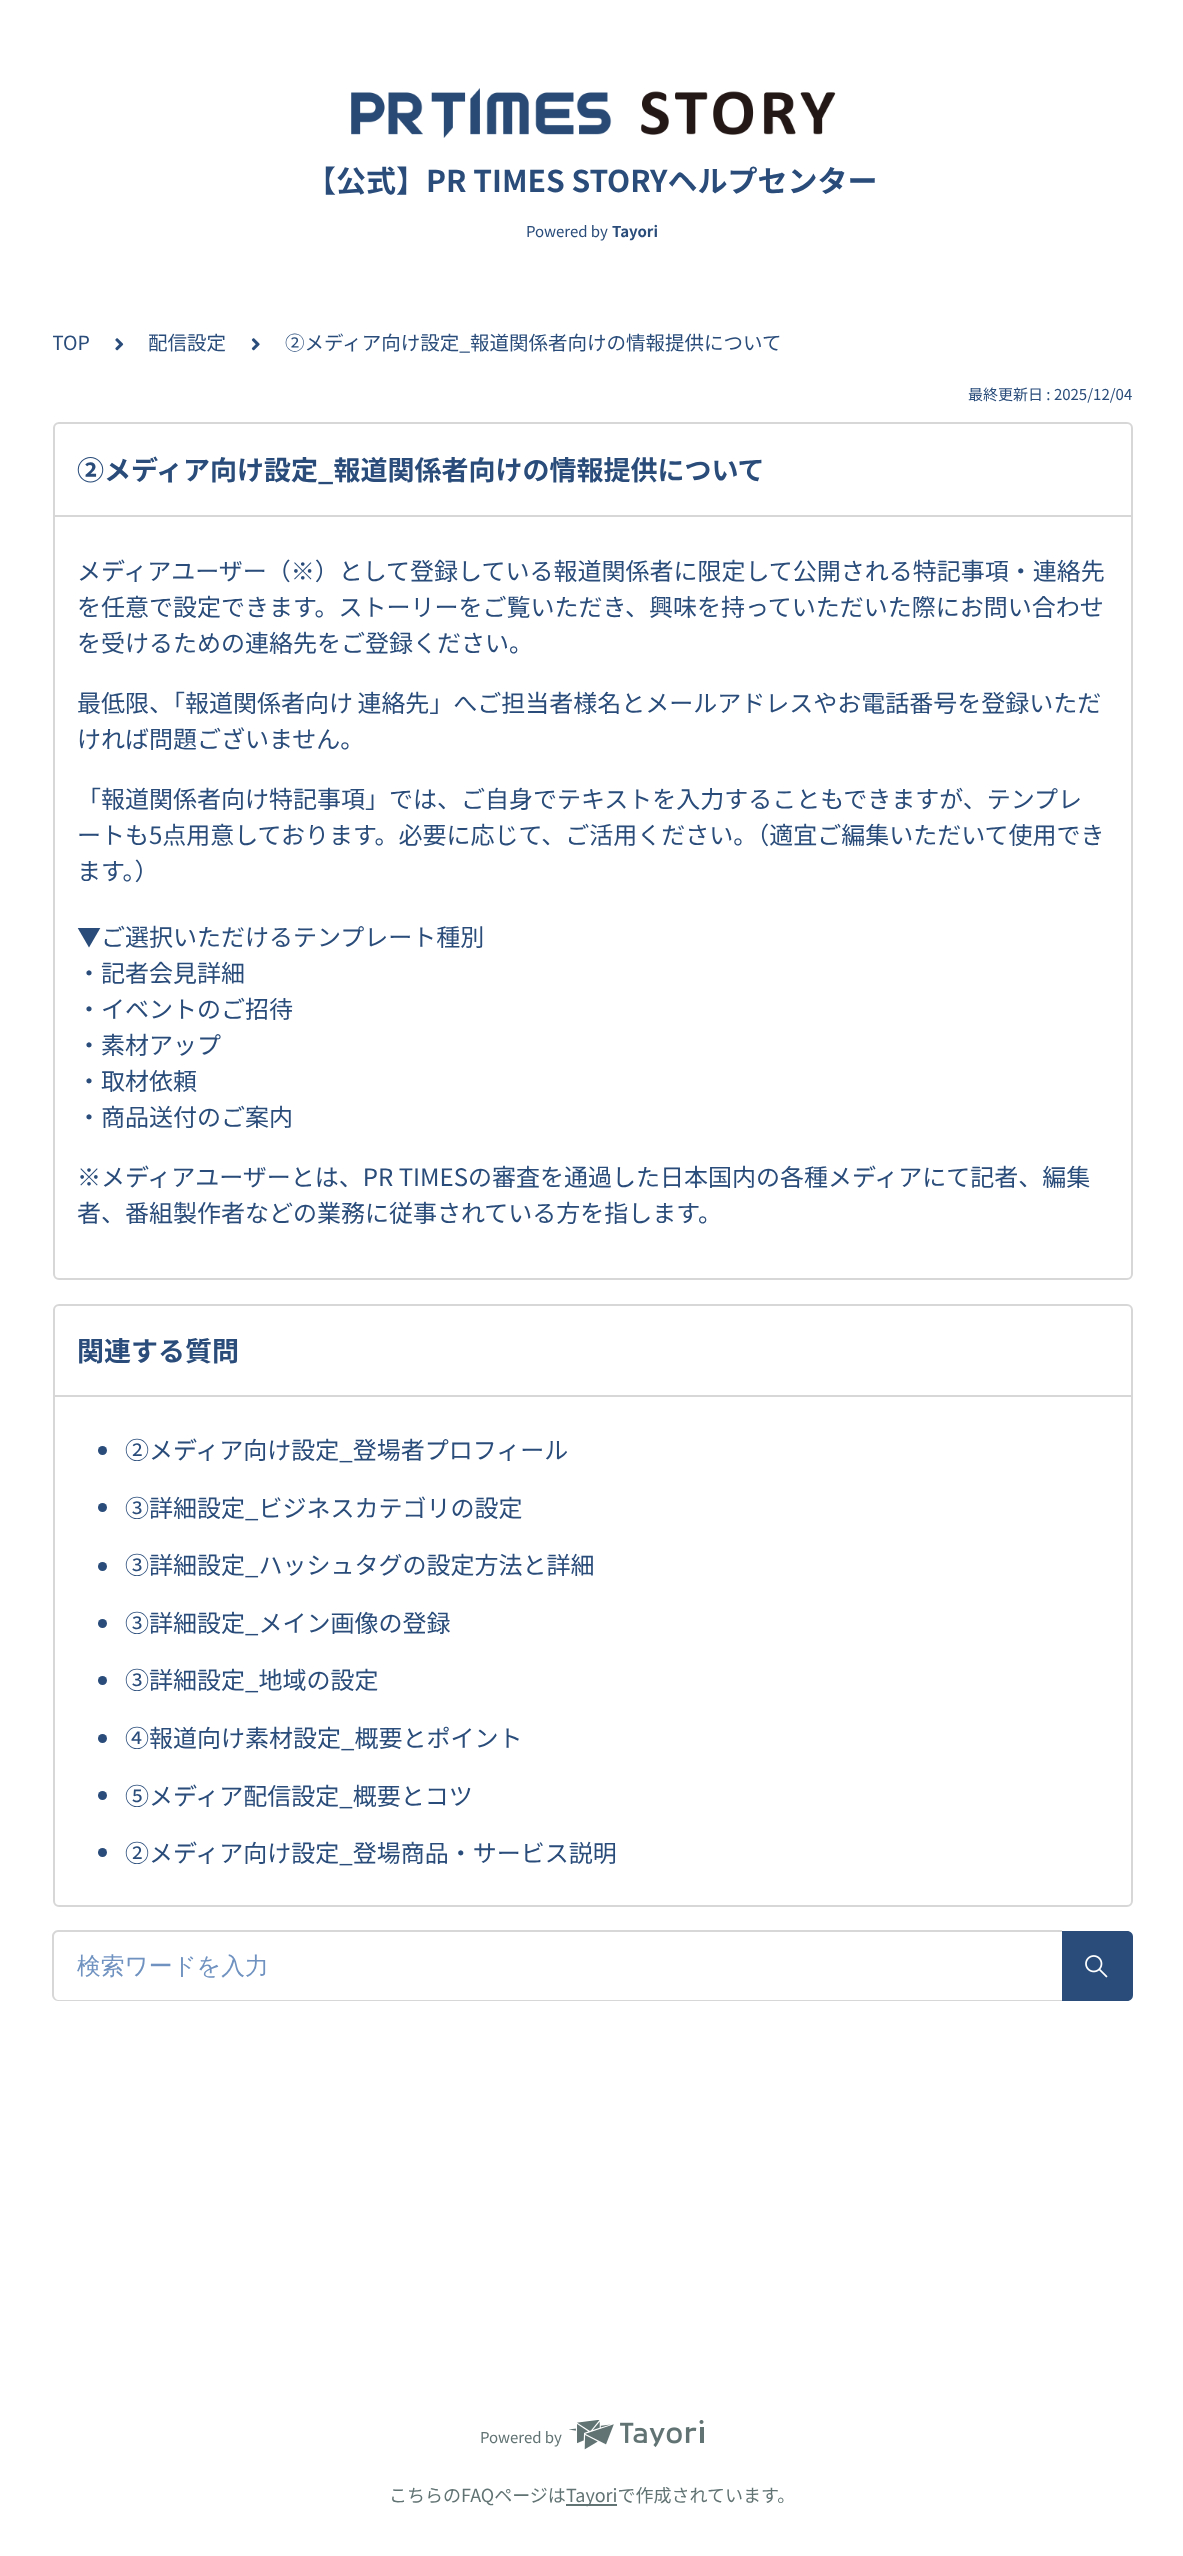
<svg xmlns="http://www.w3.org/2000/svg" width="1183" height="2556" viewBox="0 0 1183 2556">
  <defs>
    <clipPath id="clip1"><rect x="53" y="327" width="1080" height="32"/></clipPath>
  </defs>
  <rect width="100%" height="100%" fill="rgb(255,255,255)"/>
  <image x="351" y="88" width="485" height="50" href="pic1.png"/>
  <text x="306" y="192" font-family="Noto Sans JP" font-size="30" font-weight="bold" fill="rgb(41,76,122)">【公式】PR TIMES STORYヘルプセンター</text>
  <text x="526" y="237" font-family="Noto Sans JP" font-size="15" fill="rgb(41,76,122)">Powered by</text>
  <text x="612" y="237" font-family="Noto Sans JP" font-size="15" font-weight="bold" fill="rgb(41,76,122)">Tayori</text>
  <g clip-path="url(#clip1)">
    <text x="52" y="350" font-family="Noto Sans JP" font-size="19.5" fill="rgb(41,76,122)">TOP</text>
  </g>
  <image x="115" y="338" width="9" height="13" href="pic2.png"/>
  <text x="148" y="350" font-family="Noto Sans JP" font-size="19.5" fill="rgb(41,76,122)">配信設定</text>
  <image x="251" y="338" width="9" height="13" href="pic3.png"/>
  <text x="285" y="350" font-family="Noto Sans JP" font-size="19.5" fill="rgb(41,76,122)">②メディア向け設定_報道関係者向けの情報提供について</text>
  <text x="968" y="400" font-family="Noto Sans JP" font-size="15" fill="rgb(41,76,122)">最終更新日 : 2025/12/04</text>
  <rect x="54" y="423" width="1078" height="856" rx="5" fill="none" stroke="rgb(215,215,215)" stroke-width="2"/>
  <rect x="54" y="515" width="1077" height="2" fill="rgb(215,215,215)"/>
  <text x="77" y="480" font-family="Noto Sans JP" font-size="27" font-weight="bold" fill="rgb(41,76,122)">②メディア向け設定_報道関係者向けの情報提供について</text>
  <g font-family="Noto Sans JP" font-size="24" fill="rgb(41,76,122)">
    <text>
      <tspan x="77" y="580">メディアユーザー（※）として登録している報道関係者に限定して公開される特記事項・連絡先</tspan>
      <tspan x="77" y="616">を任意で設定できます。ストーリーをご覧いただき、興味を持っていただいた際にお問い合わせ</tspan>
      <tspan x="77" y="652">を受けるための連絡先をご登録ください。</tspan>
    </text>
    <text>
      <tspan x="77" y="712" word-spacing="-1">最低限、「報道関係者向け 連絡先」へご担当者様名とメールアドレスやお電話番号を登録いただ</tspan>
      <tspan x="77" y="748">ければ問題ございません。</tspan>
    </text>
    <text>
      <tspan x="77" y="808">「報道関係者向け特記事項」では、ご自身でテキストを入力することもできますが、テンプレ</tspan>
      <tspan x="77" y="844">ートも5点用意しております。必要に応じて、ご活用ください。（適宜ご編集いただいて使用でき</tspan>
      <tspan x="77" y="880">ます。）</tspan>
    </text>
    <text>
      <tspan x="77" y="946">▼ご選択いただけるテンプレート種別</tspan>
      <tspan x="77" y="982">・記者会見詳細</tspan>
      <tspan x="77" y="1018">・イベントのご招待</tspan>
      <tspan x="77" y="1054">・素材アップ</tspan>
      <tspan x="77" y="1090">・取材依頼</tspan>
      <tspan x="77" y="1126">・商品送付のご案内</tspan>
    </text>
    <text>
      <tspan x="77" y="1186">※メディアユーザーとは、PR TIMESの審査を通過した日本国内の各種メディアにて記者、編集</tspan>
      <tspan x="77" y="1222">者、番組製作者などの業務に従事されている方を指します。</tspan>
    </text>
  </g>
  <rect x="54" y="1305" width="1078" height="601" rx="5" fill="none" stroke="rgb(215,215,215)" stroke-width="2"/>
  <rect x="54" y="1395" width="1077" height="2" fill="rgb(215,215,215)"/>
  <text x="77" y="1361" font-family="Noto Sans JP" font-size="27" font-weight="bold" fill="rgb(41,76,122)">関連する質問</text>
  <circle cx="102.5" cy="1450.5" r="4.5" fill="rgb(41,76,122)"/>
  <text x="125" y="1459" font-family="Noto Sans JP" font-size="24" fill="rgb(41,76,122)">②メディア向け設定_登場者プロフィール</text>
  <circle cx="102.5" cy="1507.5" r="4.5" fill="rgb(41,76,122)"/>
  <text x="125" y="1517" font-family="Noto Sans JP" font-size="24" fill="rgb(41,76,122)">③詳細設定_ビジネスカテゴリの設定</text>
  <circle cx="102.5" cy="1566.5" r="4.5" fill="rgb(41,76,122)"/>
  <text x="125" y="1574" font-family="Noto Sans JP" font-size="24" fill="rgb(41,76,122)">③詳細設定_ハッシュタグの設定方法と詳細</text>
  <circle cx="102.5" cy="1623.5" r="4.5" fill="rgb(41,76,122)"/>
  <text x="125" y="1632" font-family="Noto Sans JP" font-size="24" fill="rgb(41,76,122)">③詳細設定_メイン画像の登録</text>
  <circle cx="102.5" cy="1680.5" r="4.5" fill="rgb(41,76,122)"/>
  <text x="125" y="1689" font-family="Noto Sans JP" font-size="24" fill="rgb(41,76,122)">③詳細設定_地域の設定</text>
  <circle cx="102.5" cy="1738.5" r="4.5" fill="rgb(41,76,122)"/>
  <text x="125" y="1747" font-family="Noto Sans JP" font-size="24" fill="rgb(41,76,122)">④報道向け素材設定_概要とポイント</text>
  <circle cx="102.5" cy="1795.5" r="4.5" fill="rgb(41,76,122)"/>
  <text x="125" y="1805" font-family="Noto Sans JP" font-size="24" fill="rgb(41,76,122)">⑤メディア配信設定_概要とコツ</text>
  <circle cx="102.5" cy="1852.5" r="4.5" fill="rgb(41,76,122)"/>
  <text x="125" y="1862" font-family="Noto Sans JP" font-size="24" fill="rgb(41,76,122)">②メディア向け設定_登場商品・サービス説明</text>
  <path d="M58 1930H1062V2001H58C55 2001 52 1998 52 1995V1936C52 1933 55 1930 58 1930ZM58 1932H1062V2000H58C56 2000 54 1997 54 1995V1936C54 1934 56 1932 58 1932Z" fill="rgb(215,215,215)" fill-rule="evenodd"/>
  <text x="77" y="1974" font-family="WenQuanYi Zen Hei" font-size="23.75" font-weight="500" fill="rgb(111,146,192)">検索ワードを入力</text>
  <path d="M1062 1931H1127C1130.5 1931 1133 1933.5 1133 1937V1995C1133 1998.5 1130.5 2001 1127 2001H1062Z" fill="rgb(41,76,122)"/>
  <image x="1085" y="1955" width="23" height="23" href="pic4.png"/>
  <text x="480" y="2443" font-family="Noto Sans JP" font-size="15" fill="rgb(98,115,115)">Powered by</text>
  <image x="569" y="2420" width="135" height="30" href="pic5.png"/>
  <text x="389" y="2502" font-family="Noto Sans JP" font-size="18" fill="rgb(98,115,115)">こちらのFAQページは</text>
  <rect x="566" y="2504" width="51" height="2" fill="rgb(98,115,115)"/>
  <text x="566" y="2502" font-family="Noto Sans JP" font-size="18" fill="rgb(98,115,115)">Tayoriで作成されています。</text>
</svg>
